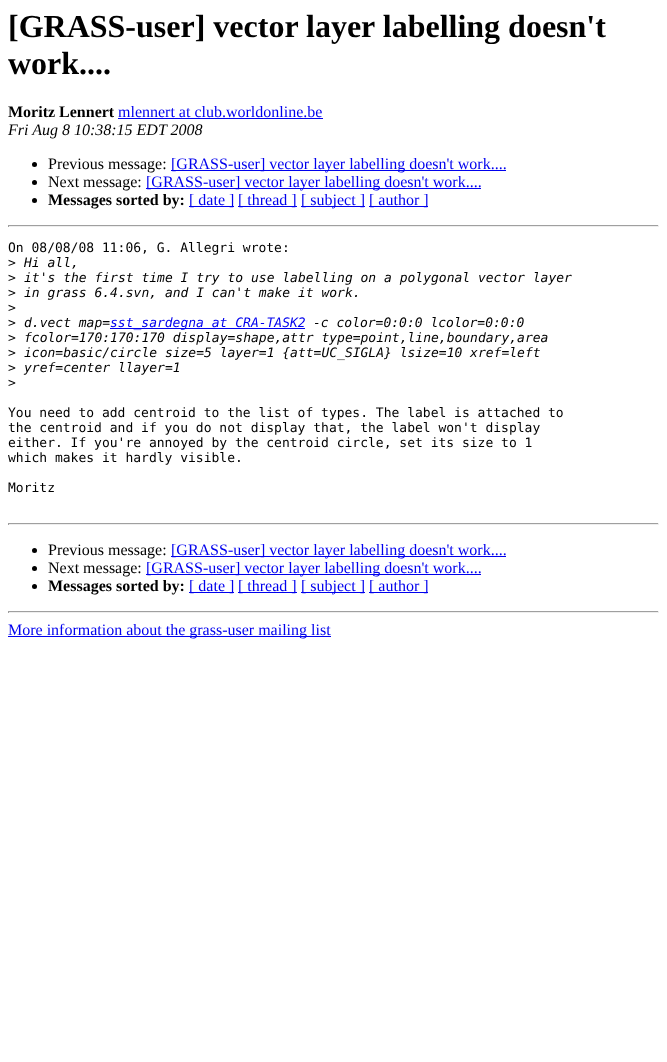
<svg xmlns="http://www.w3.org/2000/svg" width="667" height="1062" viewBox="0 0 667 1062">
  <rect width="100%" height="100%" fill="rgb(255,255,255)"/>
  <g font-family="Liberation Serif" font-size="32" font-weight="bold" fill="rgb(0,0,0)">
    <text>
      <tspan x="8" y="37">[GRASS-user] vector layer labelling doesn't</tspan>
      <tspan x="8" y="74">work....</tspan>
    </text>
  </g>
  <text x="8" y="117" font-family="Liberation Serif" font-size="16" font-weight="bold" fill="rgb(0,0,0)">Moritz Lennert</text>
  <text x="118" y="117" font-family="Liberation Serif" font-size="16" fill="rgb(0,0,238)">mlennert at club.worldonline.be</text>
  <rect x="118" y="118" width="205" height="1" fill="rgb(0,0,238)"/>
  <text x="8" y="135" font-family="Liberation Serif" font-size="16" font-style="italic" fill="rgb(0,0,0)">Fri Aug 8 10:38:15 EDT 2008</text>
  <circle cx="34.5" cy="164.5" r="2.5" fill="rgb(0,0,0)"/>
  <text x="48" y="169" font-family="Liberation Serif" font-size="16" fill="rgb(0,0,0)">Previous message:</text>
  <rect x="171" y="170" width="335" height="1" fill="rgb(0,0,238)"/>
  <text x="171" y="169" font-family="Liberation Serif" font-size="16" fill="rgb(0,0,238)">[GRASS-user] vector layer labelling doesn't work....</text>
  <circle cx="34.5" cy="182.5" r="2.5" fill="rgb(0,0,0)"/>
  <text x="48" y="187" font-family="Liberation Serif" font-size="16" fill="rgb(0,0,0)">Next message:</text>
  <rect x="146" y="188" width="335" height="1" fill="rgb(0,0,238)"/>
  <text x="146" y="187" font-family="Liberation Serif" font-size="16" fill="rgb(0,0,238)">[GRASS-user] vector layer labelling doesn't work....</text>
  <circle cx="34.5" cy="200.5" r="2.5" fill="rgb(0,0,0)"/>
  <text x="48" y="205" font-family="Liberation Serif" font-size="16" font-weight="bold" fill="rgb(0,0,0)">Messages sorted by:</text>
  <rect x="189" y="206" width="45" height="1" fill="rgb(0,0,238)"/>
  <text x="189" y="205" font-family="Liberation Serif" font-size="16" fill="rgb(0,0,238)">[ date ]</text>
  <rect x="238" y="206" width="59" height="1" fill="rgb(0,0,238)"/>
  <text x="238" y="205" font-family="Liberation Serif" font-size="16" fill="rgb(0,0,238)">[ thread ]</text>
  <rect x="301" y="206" width="64" height="1" fill="rgb(0,0,238)"/>
  <text x="301" y="205" font-family="Liberation Serif" font-size="16" fill="rgb(0,0,238)">[ subject ]</text>
  <rect x="369" y="206" width="59" height="1" fill="rgb(0,0,238)"/>
  <text x="369" y="205" font-family="Liberation Serif" font-size="16" fill="rgb(0,0,238)">[ author ]</text>
  <rect x="8" y="225" width="651" height="1" fill="rgb(159,159,159)"/>
  <rect x="658" y="225" width="1" height="2" fill="rgb(238,238,238)"/>
  <rect x="8" y="226" width="651" height="1" fill="rgb(238,238,238)"/>
  <rect x="8" y="225" width="1" height="2" fill="rgb(159,159,159)"/>
  <g font-family="DejaVu Sans Mono" font-size="13" fill="rgb(0,0,0)">
    <text>
      <tspan x="8" y="252">On 08/08/08 11:06, G. Allegri wrote:</tspan>
      <tspan x="8" y="267">&gt;</tspan>
    </text>
  </g>
  <text x="24" y="267" font-family="DejaVu Sans Mono" font-size="13" font-style="italic" fill="rgb(0,0,0)">Hi all,</text>
  <text x="8" y="282" font-family="DejaVu Sans Mono" font-size="13" fill="rgb(0,0,0)">&gt;</text>
  <text x="24" y="282" font-family="DejaVu Sans Mono" font-size="13" font-style="italic" fill="rgb(0,0,0)">it's the first time I try to use labelling on a polygonal vector layer</text>
  <text x="8" y="297" font-family="DejaVu Sans Mono" font-size="13" fill="rgb(0,0,0)">&gt;</text>
  <text x="24" y="297" font-family="DejaVu Sans Mono" font-size="13" font-style="italic" fill="rgb(0,0,0)">in grass 6.4.svn, and I can't make it work.</text>
  <g font-family="DejaVu Sans Mono" font-size="13" fill="rgb(0,0,0)">
    <text>
      <tspan x="8" y="312">&gt;</tspan>
      <tspan x="8" y="327">&gt;</tspan>
    </text>
  </g>
  <text x="24" y="327" font-family="DejaVu Sans Mono" font-size="13" font-style="italic" fill="rgb(0,0,0)">d.vect map=</text>
  <rect x="110" y="328" width="195" height="1" fill="rgb(0,0,238)"/>
  <text x="110" y="327" font-family="DejaVu Sans Mono" font-size="13" font-style="italic" fill="rgb(0,0,238)">sst_sardegna at CRA-TASK2</text>
  <text x="313" y="327" font-family="DejaVu Sans Mono" font-size="13" font-style="italic" fill="rgb(0,0,0)">-c color=0:0:0 lcolor=0:0:0</text>
  <text x="8" y="342" font-family="DejaVu Sans Mono" font-size="13" fill="rgb(0,0,0)">&gt;</text>
  <text x="24" y="342" font-family="DejaVu Sans Mono" font-size="13" font-style="italic" fill="rgb(0,0,0)">fcolor=170:170:170 display=shape,attr type=point,line,boundary,area</text>
  <text x="8" y="357" font-family="DejaVu Sans Mono" font-size="13" fill="rgb(0,0,0)">&gt;</text>
  <text x="24" y="357" font-family="DejaVu Sans Mono" font-size="13" font-style="italic" fill="rgb(0,0,0)">icon=basic/circle size=5 layer=1 {att=UC_SIGLA} lsize=10 xref=left</text>
  <text x="8" y="372" font-family="DejaVu Sans Mono" font-size="13" fill="rgb(0,0,0)">&gt;</text>
  <text x="24" y="372" font-family="DejaVu Sans Mono" font-size="13" font-style="italic" fill="rgb(0,0,0)">yref=center llayer=1</text>
  <g font-family="DejaVu Sans Mono" font-size="13" fill="rgb(0,0,0)">
    <text x="8" y="387">&gt;</text>
    <text>
      <tspan x="8" y="417">You need to add centroid to the list of types. The label is attached to</tspan>
      <tspan x="8" y="432">the centroid and if you do not display that, the label won't display</tspan>
      <tspan x="8" y="447">either. If you're annoyed by the centroid circle, set its size to 1</tspan>
      <tspan x="8" y="462">which makes it hardly visible.</tspan>
    </text>
    <text x="8" y="492">Moritz</text>
  </g>
  <rect x="8" y="523" width="651" height="1" fill="rgb(159,159,159)"/>
  <rect x="658" y="523" width="1" height="2" fill="rgb(238,238,238)"/>
  <rect x="8" y="524" width="651" height="1" fill="rgb(238,238,238)"/>
  <rect x="8" y="523" width="1" height="2" fill="rgb(159,159,159)"/>
  <circle cx="34.5" cy="550.5" r="2.5" fill="rgb(0,0,0)"/>
  <text x="48" y="555" font-family="Liberation Serif" font-size="16" fill="rgb(0,0,0)">Previous message:</text>
  <rect x="171" y="556" width="335" height="1" fill="rgb(0,0,238)"/>
  <text x="171" y="555" font-family="Liberation Serif" font-size="16" fill="rgb(0,0,238)">[GRASS-user] vector layer labelling doesn't work....</text>
  <circle cx="34.5" cy="568.5" r="2.5" fill="rgb(0,0,0)"/>
  <text x="48" y="573" font-family="Liberation Serif" font-size="16" fill="rgb(0,0,0)">Next message:</text>
  <rect x="146" y="574" width="335" height="1" fill="rgb(0,0,238)"/>
  <text x="146" y="573" font-family="Liberation Serif" font-size="16" fill="rgb(0,0,238)">[GRASS-user] vector layer labelling doesn't work....</text>
  <circle cx="34.5" cy="586.5" r="2.5" fill="rgb(0,0,0)"/>
  <text x="48" y="591" font-family="Liberation Serif" font-size="16" font-weight="bold" fill="rgb(0,0,0)">Messages sorted by:</text>
  <rect x="189" y="592" width="45" height="1" fill="rgb(0,0,238)"/>
  <text x="189" y="591" font-family="Liberation Serif" font-size="16" fill="rgb(0,0,238)">[ date ]</text>
  <rect x="238" y="592" width="59" height="1" fill="rgb(0,0,238)"/>
  <text x="238" y="591" font-family="Liberation Serif" font-size="16" fill="rgb(0,0,238)">[ thread ]</text>
  <rect x="301" y="592" width="64" height="1" fill="rgb(0,0,238)"/>
  <text x="301" y="591" font-family="Liberation Serif" font-size="16" fill="rgb(0,0,238)">[ subject ]</text>
  <rect x="369" y="592" width="59" height="1" fill="rgb(0,0,238)"/>
  <text x="369" y="591" font-family="Liberation Serif" font-size="16" fill="rgb(0,0,238)">[ author ]</text>
  <rect x="8" y="611" width="651" height="1" fill="rgb(159,159,159)"/>
  <rect x="658" y="611" width="1" height="2" fill="rgb(238,238,238)"/>
  <rect x="8" y="612" width="651" height="1" fill="rgb(238,238,238)"/>
  <rect x="8" y="611" width="1" height="2" fill="rgb(159,159,159)"/>
  <rect x="8" y="636" width="323" height="1" fill="rgb(0,0,238)"/>
  <text x="8" y="635" font-family="Liberation Serif" font-size="16" fill="rgb(0,0,238)">More information about the grass-user mailing list</text>
</svg>
